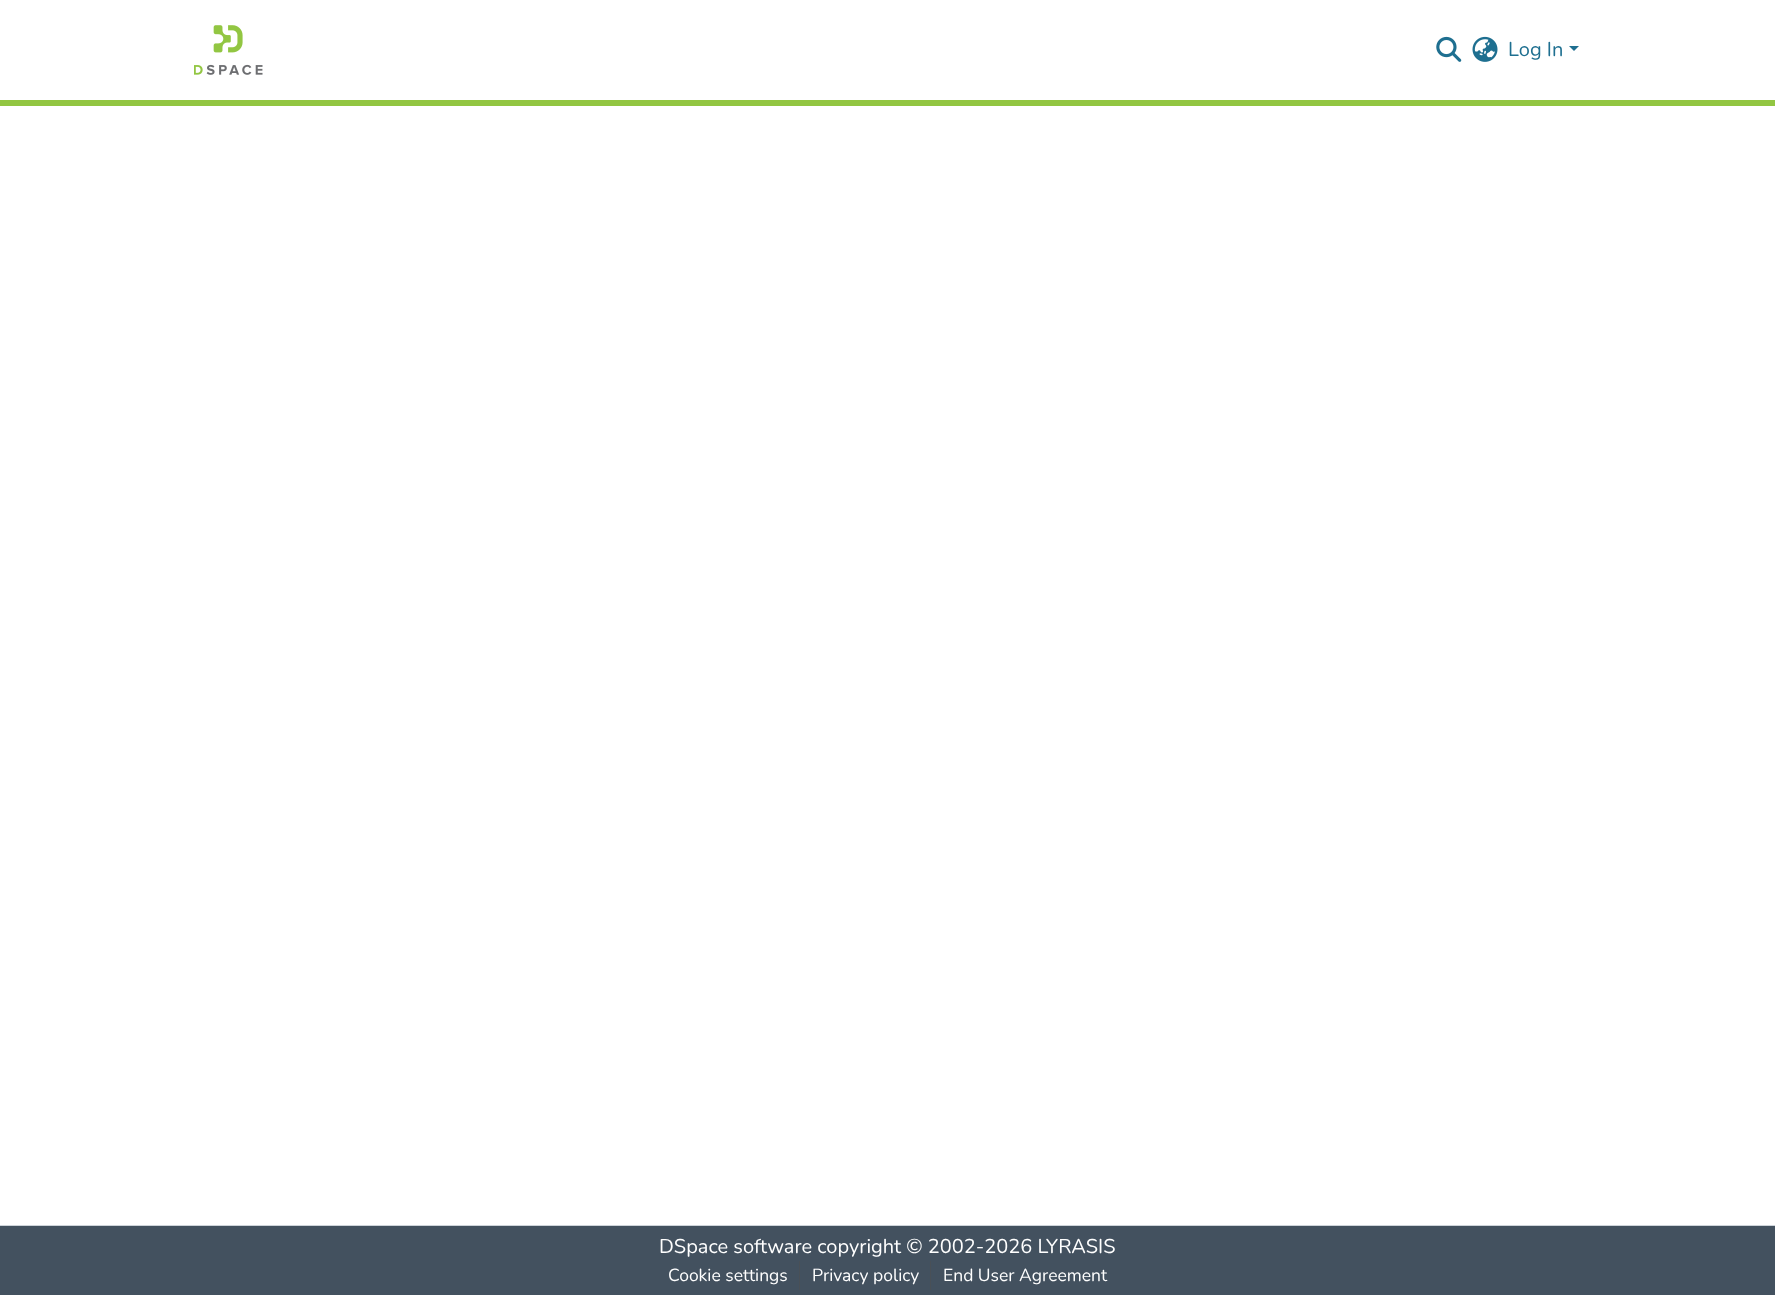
<svg xmlns="http://www.w3.org/2000/svg" width="1775" height="1295" viewBox="0 0 1775 1295">
  <rect width="100%" height="100%" fill="rgb(255,255,255)"/>
  <rect x="0" y="100" width="1775" height="6" fill="rgb(146,198,66)"/>
  <image x="194" y="25" width="69" height="50" href="pic1.png"/>
  <image x="1436" y="36" width="26" height="26" href="pic2.png"/>
  <image x="1472" y="36" width="26" height="26" href="pic3.png"/>
  <text x="1508" y="56" font-family="Nunito" font-size="20" fill="rgb(30,111,144)">Log In</text>
  <path d="M1569 46H1579L1574 51Z" fill="rgb(30,111,144)"/>
  <rect x="0" y="1226" width="1775" height="69" fill="rgb(67,81,95)"/>
  <rect x="0" y="1225" width="1775" height="1" fill="rgb(206,212,218)"/>
  <text x="659" y="1253" font-family="Nunito" font-size="20" fill="rgb(255,255,255)">DSpace software copyright © 2002-2026 LYRASIS</text>
  <text x="668" y="1281" font-family="Nunito" font-size="17.5" fill="rgb(255,255,255)">Cookie settings</text>
  <rect x="799" y="1261" width="1" height="29" fill="rgb(73,80,87)"/>
  <text x="812" y="1281" font-family="Nunito" font-size="17.5" fill="rgb(255,255,255)">Privacy policy</text>
  <rect x="930" y="1261" width="1" height="29" fill="rgb(73,80,87)"/>
  <text x="943" y="1281" font-family="Nunito" font-size="17.5" fill="rgb(255,255,255)">End User Agreement</text>
</svg>
